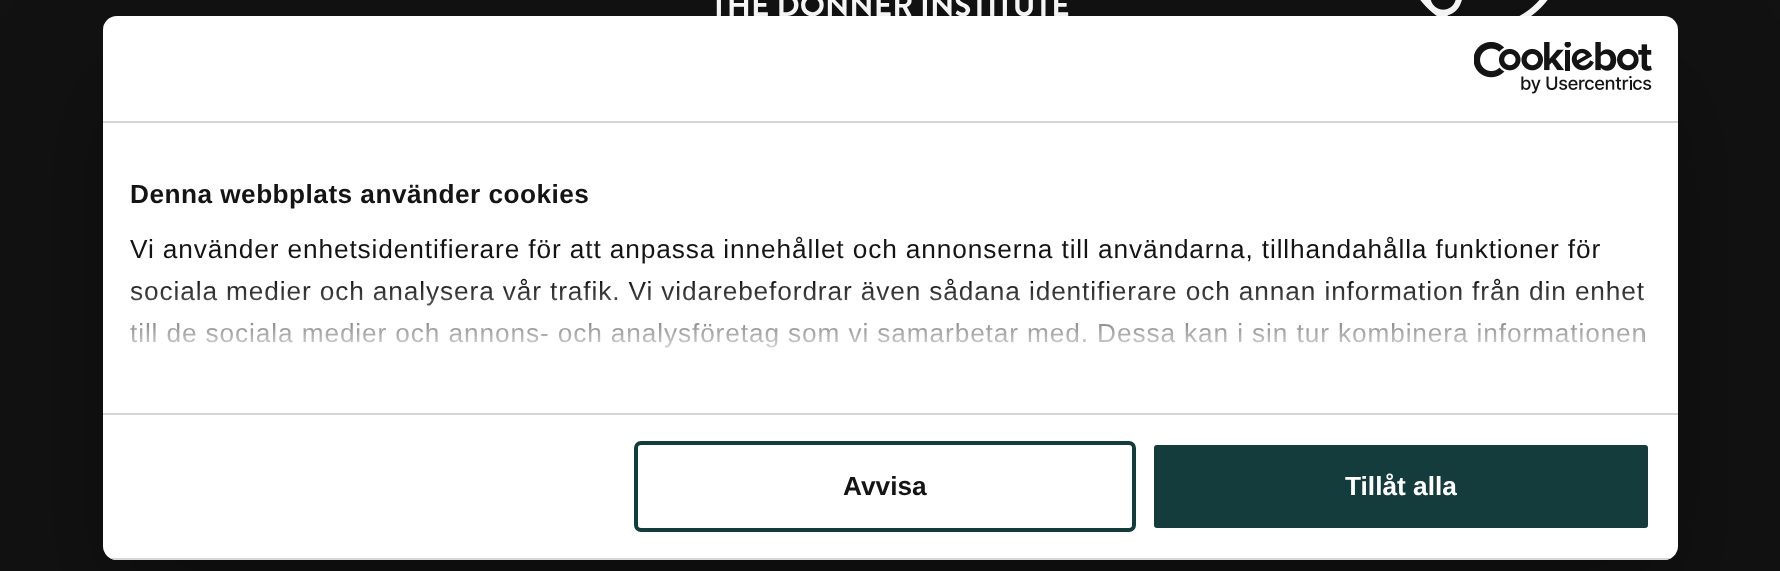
<svg xmlns="http://www.w3.org/2000/svg" width="1780" height="571" viewBox="0 0 1780 571">
  <defs>
    <linearGradient id="g1" gradientUnits="userSpaceOnUse" x1="879" y1="412" x2="879" y2="281"><stop offset="0" stop-color="rgb(255,255,255)"/><stop offset="0.5" stop-color="rgb(255,255,255)" stop-opacity="0.8"/><stop offset="1" stop-color="rgb(255,255,255)" stop-opacity="0"/></linearGradient>
    <clipPath id="clip1"><rect x="103" y="16" width="1575" height="544" rx="14"/></clipPath>
  </defs>
  <rect width="100%" height="100%" fill="rgb(18,18,18)"/>
  <text x="711" y="16" font-family="Brandon Grotesque" font-size="31.5" font-weight="bold" fill="rgb(255,255,255)">THE DONNER INSTITUTE</text>
  <image x="1420" y="0" width="128" height="16" href="pic1.png"/>
  <rect x="103" y="72" width="1575" height="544" rx="14" fill="rgba(0,0,0,0.3)" filter="blur(59.5px)"/>
  <rect x="103" y="16" width="1575" height="544" rx="14" fill="rgb(255,255,255)"/>
  <rect x="103" y="121" width="1575" height="2" fill="rgb(214,214,214)"/>
  <image x="1474" y="42" width="178" height="52" href="pic2.png"/>
  <rect x="103" y="413" width="1575" height="2" fill="rgb(214,214,214)"/>
  <text x="130" y="203" font-family="Liberation Sans" font-size="26.25" font-weight="bold" letter-spacing="0.45" fill="rgb(20,20,20)">Denna webbplats använder cookies</text>
  <g font-family="Liberation Sans" font-size="26.25" letter-spacing="0.88" fill="rgb(20,20,20)">
    <text>
      <tspan x="130" y="258">Vi använder enhetsidentifierare för att anpassa innehållet och annonserna till användarna, tillhandahålla funktioner för</tspan>
      <tspan x="130" y="300">sociala medier och analysera vår trafik. Vi vidarebefordrar även sådana identifierare och annan information från din enhet</tspan>
      <tspan x="130" y="342">till de sociala medier och annons- och analysföretag som vi samarbetar med. Dessa kan i sin tur kombinera informationen</tspan>
    </text>
  </g>
  <rect x="129" y="283" width="1515" height="65" fill="url(#g1)"/>
  <g clip-path="url(#clip1)">
    <rect x="103" y="558" width="1575" height="2" fill="rgb(214,214,214)"/>
  </g>
  <rect x="636" y="443" width="498" height="87" rx="5" fill="none" stroke="rgb(20,60,60)" stroke-width="4"/>
  <text x="843" y="495" font-family="Liberation Sans" font-size="26.25" font-weight="bold" fill="rgb(20,20,20)">Avvisa</text>
  <rect x="1152" y="443" width="498" height="87" rx="5" fill="rgb(20,60,60)" stroke="rgb(255,255,255)" stroke-width="4"/>
  <text x="1345" y="495" font-family="Liberation Sans" font-size="26.25" font-weight="bold" fill="rgb(255,255,255)">Tillåt alla</text>
</svg>
